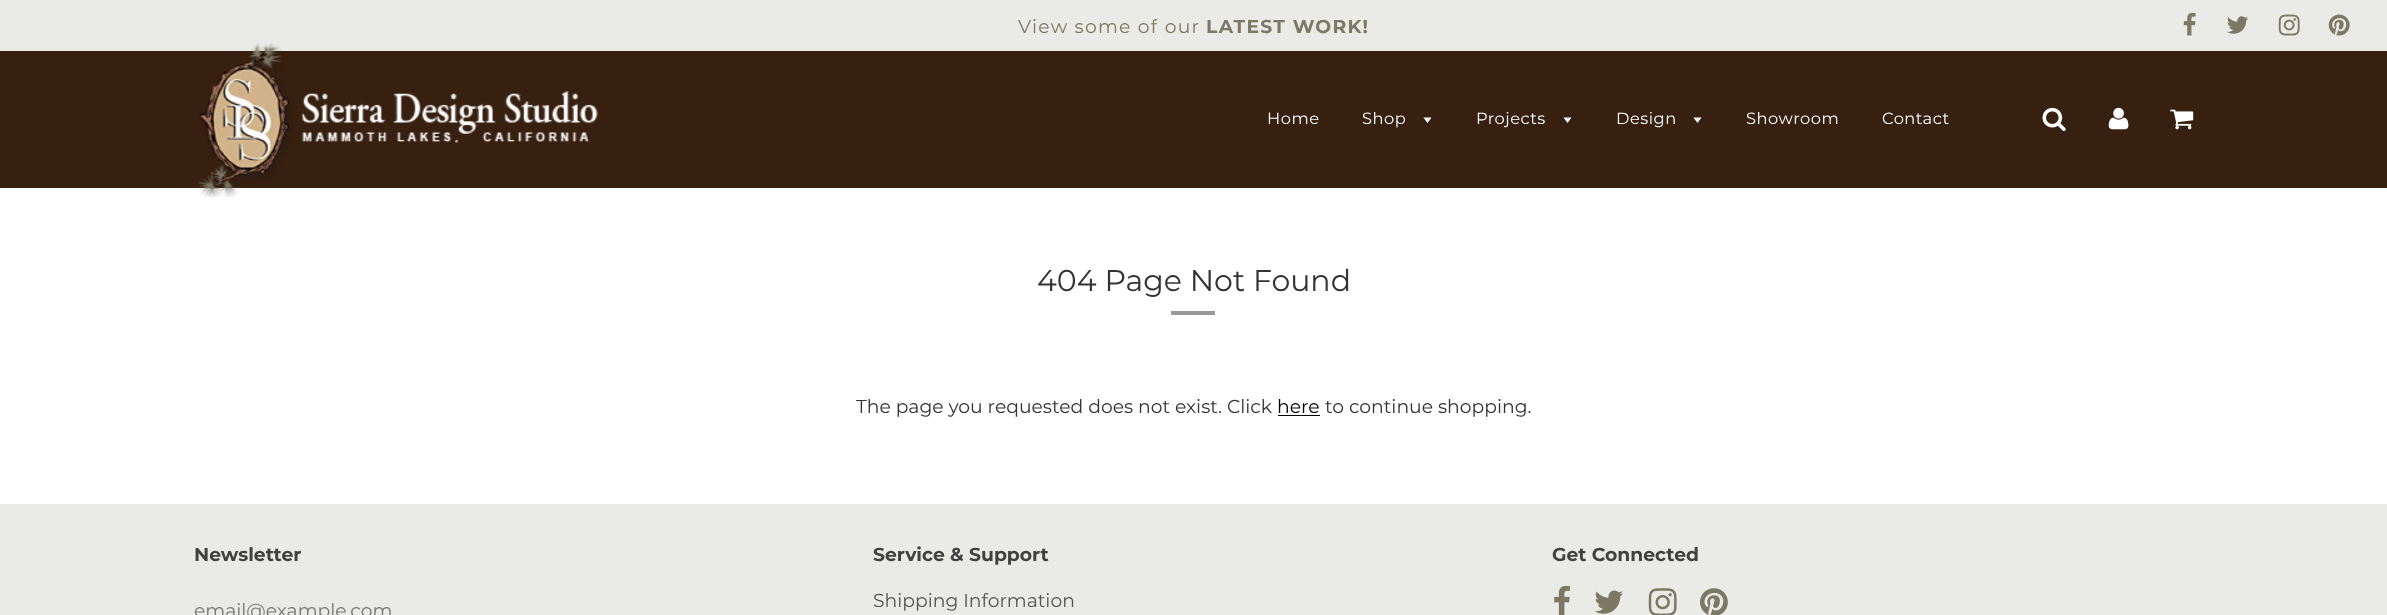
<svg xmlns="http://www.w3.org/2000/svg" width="2387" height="615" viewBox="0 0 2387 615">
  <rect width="100%" height="100%" fill="rgb(255,255,255)"/>
  <rect x="0" y="0" width="2387" height="51" fill="rgb(234,234,231)"/>
  <text x="1018" y="33" font-family="Montserrat" font-size="18.75" font-weight="100" letter-spacing="1.25" fill="rgb(123,120,99)">View some of our</text>
  <text x="1206" y="33" font-family="Montserrat" font-size="18.75" font-weight="bold" letter-spacing="1.25" fill="rgb(123,120,99)">LATEST WORK!</text>
  <image x="2183" y="12" width="13" height="24" href="pic1.png"/>
  <image x="2227" y="16" width="22" height="18" href="pic2.png"/>
  <image x="2278" y="14" width="22" height="22" href="pic3.png"/>
  <image x="2328" y="14" width="22" height="22" href="pic4.png"/>
  <rect x="0" y="51" width="2387" height="137" fill="rgb(55,32,16)"/>
  <image x="197" y="42" width="401" height="156" href="pic5.png"/>
  <g font-family="Montserrat" font-size="16.25" font-weight="100" letter-spacing="0.5" fill="rgb(255,255,255)">
    <text x="1267" y="124">Home</text>
    <text x="1362" y="124">Shop</text>
  </g>
  <path d="M1423.5 117.5L1427.5 123L1431.5 117.5Z" fill="rgb(255,255,255)"/>
  <text x="1476" y="124" font-family="Montserrat" font-size="16.25" font-weight="100" letter-spacing="0.5" fill="rgb(255,255,255)">Projects</text>
  <path d="M1563.5 117.5L1567.5 123L1571.5 117.5Z" fill="rgb(255,255,255)"/>
  <text x="1616" y="124" font-family="Montserrat" font-size="16.25" font-weight="100" letter-spacing="0.5" fill="rgb(255,255,255)">Design</text>
  <path d="M1693.5 117.5L1697.5 123L1701.5 117.5Z" fill="rgb(255,255,255)"/>
  <g font-family="Montserrat" font-size="16.25" font-weight="100" letter-spacing="0.5" fill="rgb(255,255,255)">
    <text x="1746" y="124">Showroom</text>
    <text x="1882" y="124">Contact</text>
  </g>
  <image x="2042" y="107" width="24" height="24" href="pic6.png"/>
  <image x="2108" y="107" width="21" height="23" href="pic7.png"/>
  <image x="2170" y="109" width="24" height="21" href="pic8.png"/>
  <text x="1037" y="291" font-family="Montserrat" font-size="30" font-weight="100" fill="rgb(51,51,51)">404 Page Not Found</text>
  <rect x="1171" y="311" width="44" height="4" fill="rgb(153,153,153)"/>
  <text x="856" y="413" font-family="Montserrat" font-size="18.75" font-weight="100" fill="rgb(51,51,51)">The page you requested does not exist. Click</text>
  <text x="1277" y="413" font-family="Montserrat" font-size="18.75" font-weight="100" fill="rgb(0,0,0)">here</text>
  <rect x="1278" y="415" width="42" height="1" fill="rgb(0,0,0)"/>
  <text x="1325" y="413" font-family="Montserrat" font-size="18.75" font-weight="100" fill="rgb(51,51,51)">to continue shopping.</text>
  <rect x="0" y="504" width="2387" height="111" fill="rgb(234,234,231)"/>
  <text x="194" y="561" font-family="Montserrat" font-size="18.75" font-weight="bold" fill="rgb(65,65,65)">Newsletter</text>
  <text x="194" y="617" font-family="Montserrat" font-size="18.75" font-weight="100" fill="rgb(117,117,117)">email@example.com</text>
  <text x="873" y="561" font-family="Montserrat" font-size="18.75" font-weight="bold" fill="rgb(65,65,65)">Service &amp; Support</text>
  <text x="873" y="607" font-family="Montserrat" font-size="18.75" font-weight="100" fill="rgb(84,84,84)">Shipping Information</text>
  <text x="1552" y="561" font-family="Montserrat" font-size="18.75" font-weight="bold" fill="rgb(65,65,65)">Get Connected</text>
  <image x="1554" y="585" width="16" height="30" href="pic9.png"/>
  <image x="1594" y="590" width="29" height="24" href="pic10.png"/>
  <image x="1648" y="588" width="29" height="27" href="pic11.png"/>
  <image x="1700" y="588" width="28" height="27" href="pic12.png"/>
</svg>
